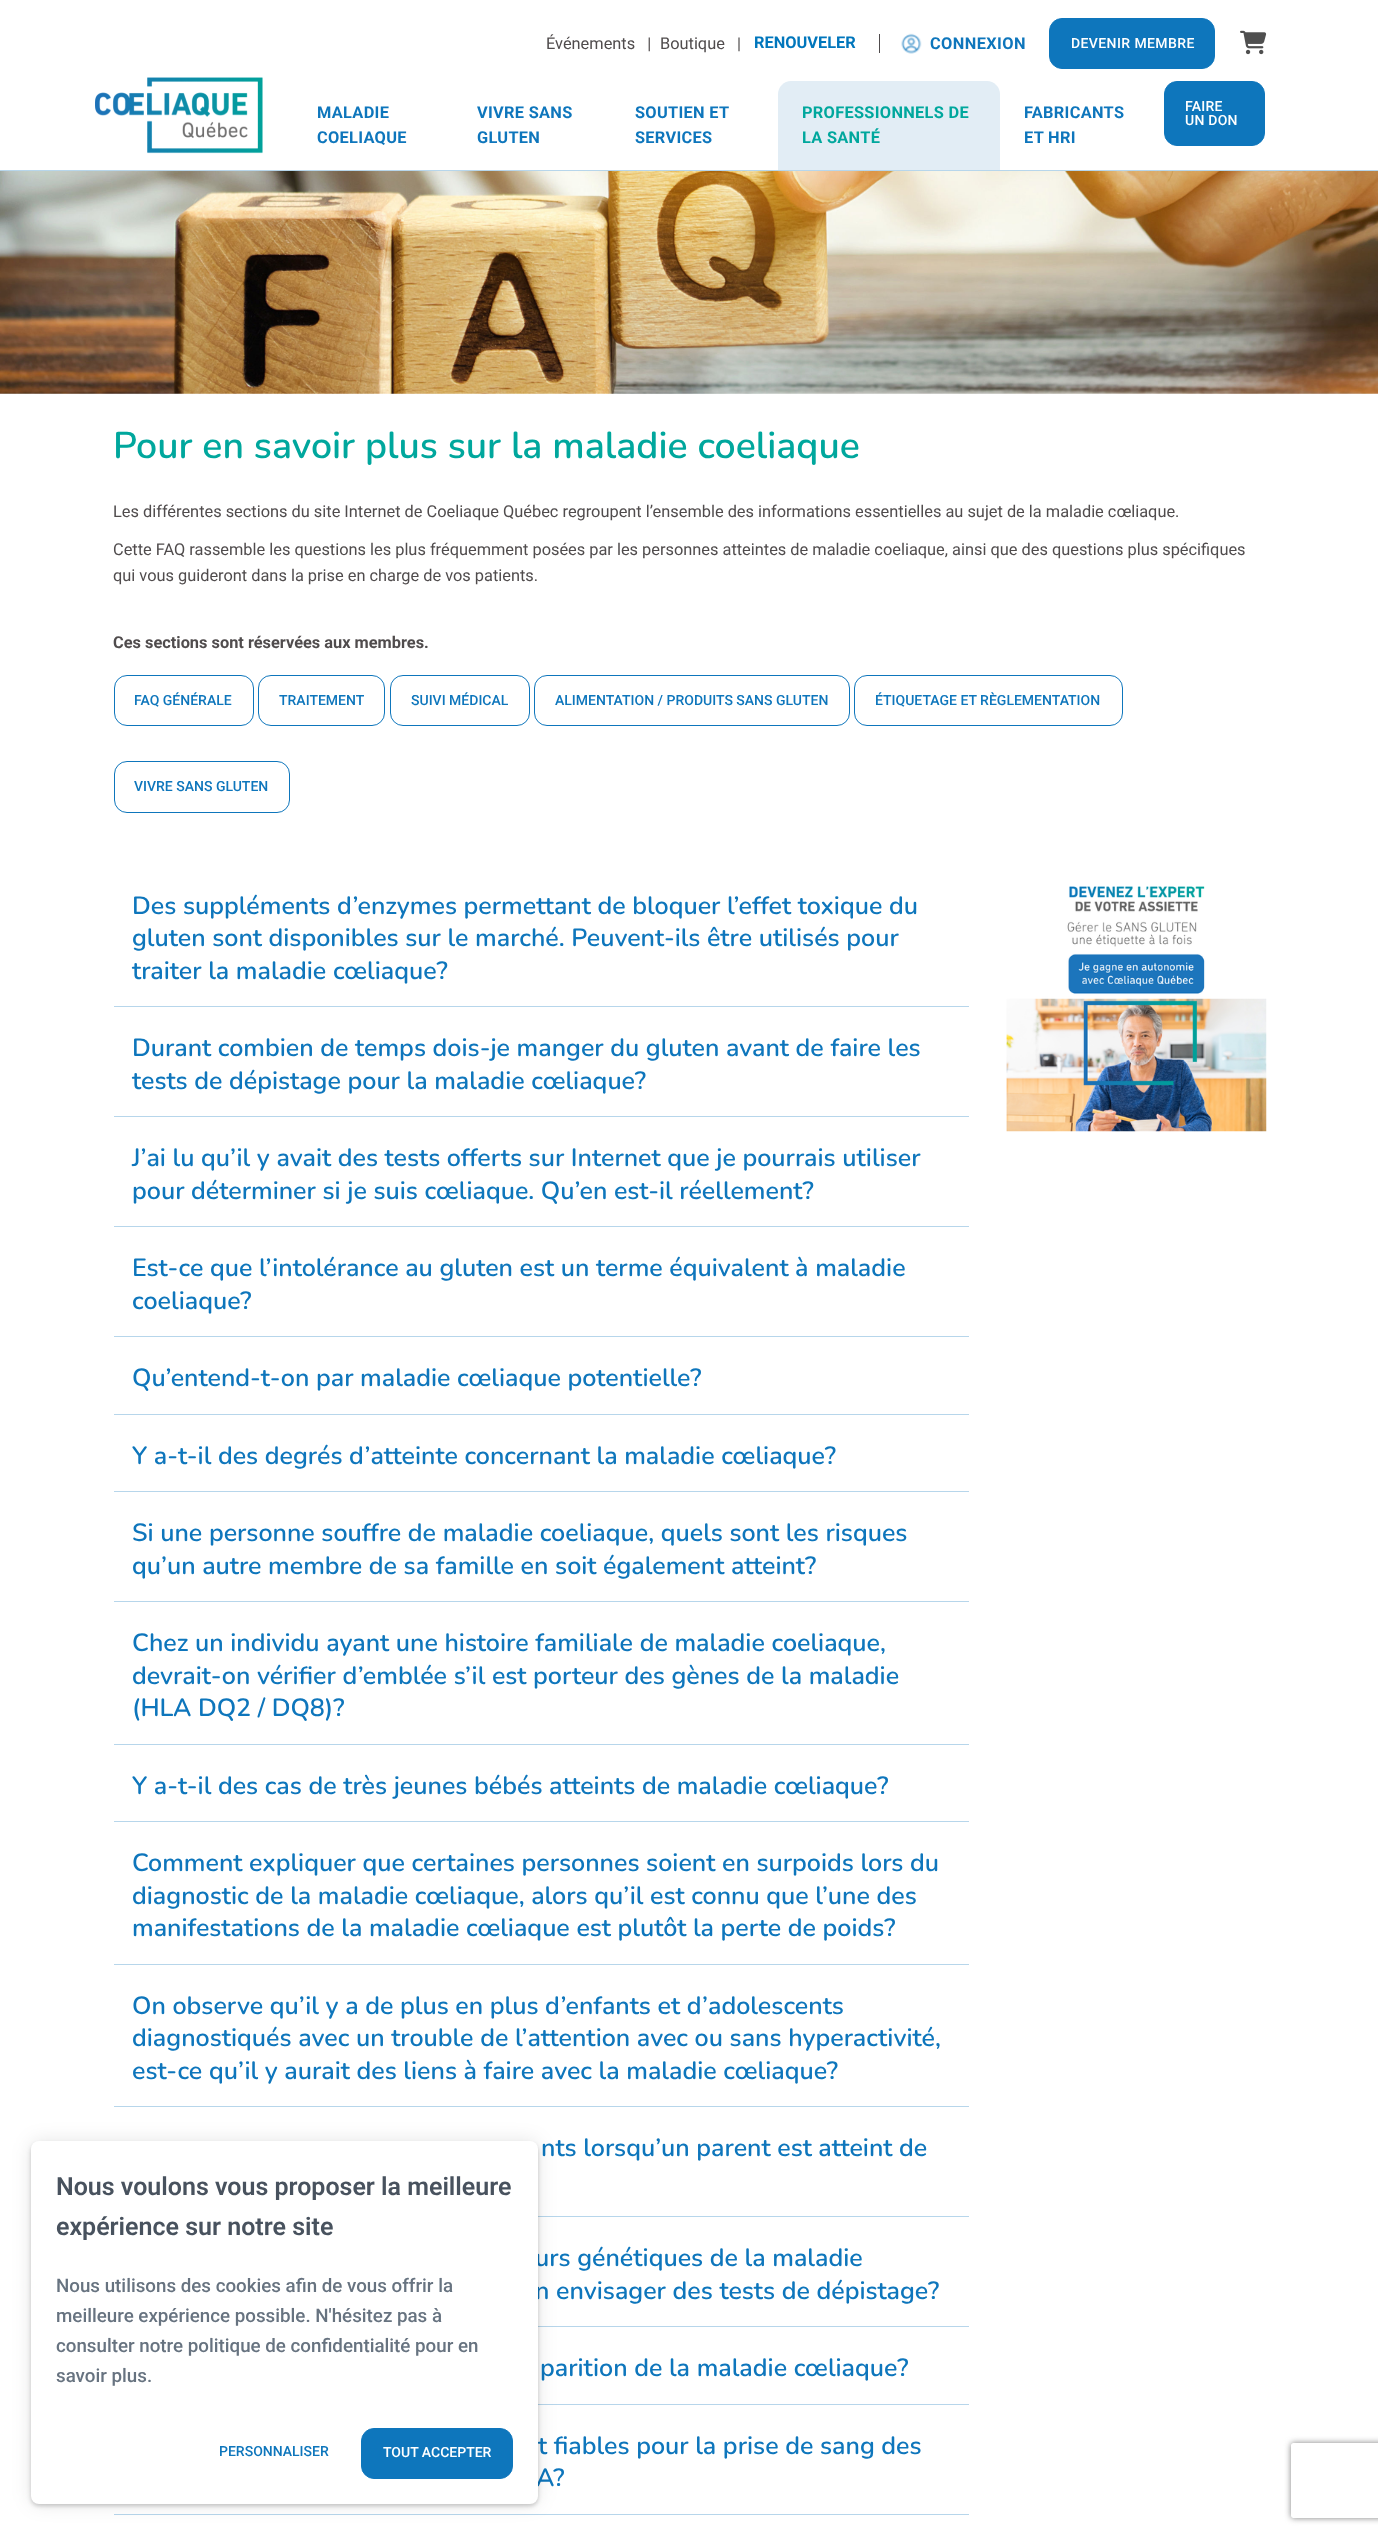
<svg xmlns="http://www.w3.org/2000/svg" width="1378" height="2534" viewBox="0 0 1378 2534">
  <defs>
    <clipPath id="clip1"><path d="M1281 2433H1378V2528H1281ZM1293.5 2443H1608.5C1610 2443 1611 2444 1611 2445.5V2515.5C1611 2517 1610 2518 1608.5 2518H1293.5C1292 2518 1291 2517 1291 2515.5V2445.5C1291 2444 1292 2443 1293.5 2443Z" clip-rule="evenodd"/></clipPath>
  </defs>
  <rect width="100%" height="100%" fill="rgb(255,255,255)"/>
  <g font-family="Roboto" font-size="16.38" fill="rgb(80,76,77)">
    <text x="546" y="49" xml:space="preserve">Événements   |</text>
    <text x="660" y="49" xml:space="preserve">Boutique   |</text>
  </g>
  <text x="754" y="48" font-family="Roboto" font-size="16.38" font-weight="bold" fill="rgb(0,118,188)">RENOUVELER</text>
  <rect x="879" y="34" width="1" height="19" fill="rgb(80,76,77)"/>
  <image x="901" y="33" width="21" height="21" href="pic1.png"/>
  <text x="930" y="49" font-family="Roboto" font-size="16.38" font-weight="bold" letter-spacing="0.4" fill="rgb(14,118,188)">CONNEXION</text>
  <rect x="1049.5" y="18.5" width="165" height="50" rx="12.5" fill="rgb(14,118,188)" stroke="rgb(14,118,188)"/>
  <text x="1071" y="48" font-family="Roboto" font-size="14" font-weight="500" letter-spacing="0.4" fill="rgb(255,255,255)">DEVENIR MEMBRE</text>
  <image x="1240" y="30" width="27" height="25" href="pic2.png"/>
  <image x="95" y="77" width="168" height="77" href="pic3.png"/>
  <rect x="0" y="170" width="1378" height="1" fill="rgb(183,214,235)"/>
  <g font-family="Roboto" font-size="16.38" font-weight="bold" letter-spacing="0.3" fill="rgb(14,118,188)">
    <text>
      <tspan x="317" y="118">MALADIE</tspan>
      <tspan x="317" y="143">COELIAQUE</tspan>
    </text>
    <text>
      <tspan x="477" y="118">VIVRE SANS</tspan>
      <tspan x="477" y="143">GLUTEN</tspan>
    </text>
    <text>
      <tspan x="635" y="118">SOUTIEN ET</tspan>
      <tspan x="635" y="143">SERVICES</tspan>
    </text>
  </g>
  <path d="M791 81H987C994 81 1000 87 1000 94V170H778V94C778 87 784 81 791 81Z" fill="rgb(226,237,245)"/>
  <g font-family="Roboto" font-size="16.38" font-weight="bold" letter-spacing="0.3" fill="rgb(0,167,157)">
    <text>
      <tspan x="802" y="118">PROFESSIONNELS DE</tspan>
      <tspan x="802" y="143">LA SANTÉ</tspan>
    </text>
  </g>
  <g font-family="Roboto" font-size="16.38" font-weight="bold" letter-spacing="0.3" fill="rgb(14,118,188)">
    <text>
      <tspan x="1024" y="118">FABRICANTS</tspan>
      <tspan x="1024" y="143">ET HRI</tspan>
    </text>
  </g>
  <rect x="1164.5" y="81.5" width="100" height="64" rx="12.5" fill="rgb(14,118,188)" stroke="rgb(14,118,188)"/>
  <g font-family="Roboto" font-size="14" font-weight="500" letter-spacing="0.25" fill="rgb(255,255,255)">
    <text>
      <tspan x="1185" y="111">FAIRE</tspan>
      <tspan x="1185" y="125">UN DON</tspan>
    </text>
  </g>
  <image x="0" y="171" width="1378" height="223" href="pic4.png"/>
  <text x="113" y="458" font-family="Nunito" font-size="37.4" font-weight="600" fill="rgb(0,167,157)">Pour en savoir plus sur la maladie coeliaque</text>
  <g font-family="Roboto" font-size="16.38" fill="rgb(80,76,77)">
    <text x="113" y="517">Les différentes sections du site Internet de Coeliaque Québec regroupent l’ensemble des informations essentielles au sujet de la maladie cœliaque.</text>
    <text>
      <tspan x="113" y="555">Cette FAQ rassemble les questions les plus fréquemment posées par les personnes atteintes de maladie coeliaque, ainsi que des questions plus spécifiques</tspan>
      <tspan x="113" y="581">qui vous guideront dans la prise en charge de vos patients.</tspan>
    </text>
  </g>
  <text x="113" y="648" font-family="Roboto" font-size="16.38" font-weight="bold" fill="rgb(80,76,77)">Ces sections sont réservées aux membres.</text>
  <rect x="114.5" y="675.5" width="139" height="50" rx="12.5" fill="none" stroke="rgb(14,118,188)"/>
  <text x="134" y="705" font-family="Roboto" font-size="14" font-weight="500" fill="rgb(14,118,188)">FAQ GÉNÉRALE</text>
  <rect x="258.5" y="675.5" width="126" height="50" rx="12.5" fill="none" stroke="rgb(14,118,188)"/>
  <text x="279" y="705" font-family="Roboto" font-size="14" font-weight="500" fill="rgb(14,118,188)">TRAITEMENT</text>
  <rect x="390.5" y="675.5" width="139" height="50" rx="12.5" fill="none" stroke="rgb(14,118,188)"/>
  <text x="411" y="705" font-family="Roboto" font-size="14" font-weight="500" fill="rgb(14,118,188)">SUIVI MÉDICAL</text>
  <rect x="534.5" y="675.5" width="315" height="50" rx="12.5" fill="none" stroke="rgb(14,118,188)"/>
  <text x="555" y="705" font-family="Roboto" font-size="14" font-weight="500" fill="rgb(14,118,188)">ALIMENTATION / PRODUITS SANS GLUTEN</text>
  <rect x="854.5" y="675.5" width="268" height="50" rx="12.5" fill="none" stroke="rgb(14,118,188)"/>
  <text x="875" y="705" font-family="Roboto" font-size="14" font-weight="500" fill="rgb(14,118,188)">ÉTIQUETAGE ET RÈGLEMENTATION</text>
  <rect x="114.5" y="761.5" width="175" height="51" rx="12.5" fill="none" stroke="rgb(14,118,188)"/>
  <text x="134" y="791" font-family="Roboto" font-size="14" font-weight="500" fill="rgb(14,118,188)">VIVRE SANS GLUTEN</text>
  <rect x="114" y="1006" width="855" height="1" fill="rgb(183,214,235)"/>
  <g font-family="Nunito" font-size="25" font-weight="600" fill="rgb(14,118,188)">
    <text>
      <tspan x="132" y="914">Des suppléments d’enzymes permettant de bloquer l’effet toxique du</tspan>
      <tspan x="132" y="946">gluten sont disponibles sur le marché. Peuvent-ils être utilisés pour</tspan>
      <tspan x="132" y="979">traiter la maladie cœliaque?</tspan>
    </text>
  </g>
  <rect x="114" y="1116" width="855" height="1" fill="rgb(183,214,235)"/>
  <g font-family="Nunito" font-size="25" font-weight="600" fill="rgb(14,118,188)">
    <text>
      <tspan x="132" y="1056">Durant combien de temps dois-je manger du gluten avant de faire les</tspan>
      <tspan x="132" y="1089">tests de dépistage pour la maladie cœliaque?</tspan>
    </text>
  </g>
  <rect x="114" y="1226" width="855" height="1" fill="rgb(183,214,235)"/>
  <g font-family="Nunito" font-size="25" font-weight="600" fill="rgb(14,118,188)">
    <text>
      <tspan x="132" y="1166">J’ai lu qu’il y avait des tests offerts sur Internet que je pourrais utiliser</tspan>
      <tspan x="132" y="1199">pour déterminer si je suis cœliaque. Qu’en est-il réellement?</tspan>
    </text>
  </g>
  <rect x="114" y="1336" width="855" height="1" fill="rgb(183,214,235)"/>
  <g font-family="Nunito" font-size="25" font-weight="600" fill="rgb(14,118,188)">
    <text>
      <tspan x="132" y="1276">Est-ce que l’intolérance au gluten est un terme équivalent à maladie</tspan>
      <tspan x="132" y="1309">coeliaque?</tspan>
    </text>
  </g>
  <rect x="114" y="1414" width="855" height="1" fill="rgb(183,214,235)"/>
  <text x="132" y="1386" font-family="Nunito" font-size="25" font-weight="600" fill="rgb(14,118,188)">Qu’entend-t-on par maladie cœliaque potentielle?</text>
  <rect x="114" y="1491" width="855" height="1" fill="rgb(183,214,235)"/>
  <text x="132" y="1464" font-family="Nunito" font-size="25" font-weight="600" fill="rgb(14,118,188)">Y a-t-il des degrés d’atteinte concernant la maladie cœliaque?</text>
  <rect x="114" y="1601" width="855" height="1" fill="rgb(183,214,235)"/>
  <g font-family="Nunito" font-size="25" font-weight="600" fill="rgb(14,118,188)">
    <text>
      <tspan x="132" y="1541">Si une personne souffre de maladie coeliaque, quels sont les risques</tspan>
      <tspan x="132" y="1574">qu’un autre membre de sa famille en soit également atteint?</tspan>
    </text>
  </g>
  <rect x="114" y="1744" width="855" height="1" fill="rgb(183,214,235)"/>
  <g font-family="Nunito" font-size="25" font-weight="600" fill="rgb(14,118,188)">
    <text>
      <tspan x="132" y="1651">Chez un individu ayant une histoire familiale de maladie coeliaque,</tspan>
      <tspan x="132" y="1684">devrait-on vérifier d’emblée s’il est porteur des gènes de la maladie</tspan>
      <tspan x="132" y="1716">(HLA DQ2 / DQ8)?</tspan>
    </text>
  </g>
  <rect x="114" y="1821" width="855" height="1" fill="rgb(183,214,235)"/>
  <text x="132" y="1794" font-family="Nunito" font-size="25" font-weight="600" fill="rgb(14,118,188)">Y a-t-il des cas de très jeunes bébés atteints de maladie cœliaque?</text>
  <rect x="114" y="1964" width="855" height="1" fill="rgb(183,214,235)"/>
  <g font-family="Nunito" font-size="25" font-weight="600" fill="rgb(14,118,188)">
    <text>
      <tspan x="132" y="1871">Comment expliquer que certaines personnes soient en surpoids lors du</tspan>
      <tspan x="132" y="1904">diagnostic de la maladie cœliaque, alors qu’il est connu que l’une des</tspan>
      <tspan x="132" y="1936">manifestations de la maladie cœliaque est plutôt la perte de poids?</tspan>
    </text>
  </g>
  <rect x="114" y="2106" width="855" height="1" fill="rgb(183,214,235)"/>
  <g font-family="Nunito" font-size="25" font-weight="600" fill="rgb(14,118,188)">
    <text>
      <tspan x="132" y="2014">On observe qu’il y a de plus en plus d’enfants et d’adolescents</tspan>
      <tspan x="132" y="2046">diagnostiqués avec un trouble de l’attention avec ou sans hyperactivité,</tspan>
      <tspan x="132" y="2079">est-ce qu’il y aurait des liens à faire avec la maladie cœliaque?</tspan>
    </text>
  </g>
  <rect x="538" y="2216" width="431" height="1" fill="rgb(183,214,235)"/>
  <text x="541" y="2156" font-family="Nunito" font-size="25" font-weight="600" fill="rgb(14,118,188)">nts lorsqu’un parent est atteint de</text>
  <rect x="538" y="2326" width="431" height="1" fill="rgb(183,214,235)"/>
  <g font-family="Nunito" font-size="25" font-weight="600" fill="rgb(14,118,188)">
    <text>
      <tspan x="535" y="2266">urs génétiques de la maladie</tspan>
      <tspan x="535" y="2299">n envisager des tests de dépistage?</tspan>
    </text>
  </g>
  <rect x="538" y="2404" width="431" height="1" fill="rgb(183,214,235)"/>
  <text x="540" y="2376" font-family="Nunito" font-size="25" font-weight="600" fill="rgb(14,118,188)">parition de la maladie cœliaque?</text>
  <rect x="114" y="2514" width="855" height="1" fill="rgb(183,214,235)"/>
  <g font-family="Nunito" font-size="25" font-weight="600" fill="rgb(14,118,188)">
    <text x="538" y="2454">t fiables pour la prise de sang des</text>
    <text x="536" y="2486">A?</text>
  </g>
  <image x="1006" y="886" width="261" height="246" href="pic5.png"/>
  <g clip-path="url(#clip1)">
    <rect x="1291" y="2443" width="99" height="75" rx="2.5" fill="rgb(128,128,128)" filter="blur(3px)"/>
  </g>
  <rect x="31" y="2141" width="507" height="363" rx="8" fill="rgba(0,0,0,0.1)" filter="blur(9.5px)"/>
  <rect x="31" y="2144" width="507" height="362" rx="8" fill="rgba(0,0,0,0.2)" filter="blur(2px)"/>
  <rect x="31" y="2141" width="507" height="363" rx="8" fill="rgb(255,255,255)"/>
  <g font-family="Roboto" font-size="25" font-weight="600" fill="rgb(72,82,94)">
    <text>
      <tspan x="56" y="2195">Nous voulons vous proposer la meilleure</tspan>
      <tspan x="56" y="2235">expérience sur notre site</tspan>
    </text>
  </g>
  <g font-family="Roboto" font-size="18.75" font-weight="500" fill="rgb(103,115,128)">
    <text>
      <tspan x="56" y="2292">Nous utilisons des cookies afin de vous offrir la</tspan>
      <tspan x="56" y="2322">meilleure expérience possible. N'hésitez pas à</tspan>
      <tspan x="56" y="2352">consulter notre politique de confidentialité pour en</tspan>
      <tspan x="56" y="2382">savoir plus.</tspan>
    </text>
  </g>
  <text x="219" y="2456" font-family="Roboto" font-size="14" font-weight="500" fill="rgb(14,118,188)">PERSONNALISER</text>
  <rect x="361.5" y="2428.5" width="151" height="50" rx="12.5" fill="rgb(14,118,188)" stroke="rgb(14,118,188)"/>
  <text x="383" y="2457" font-family="Roboto" font-size="14" font-weight="500" fill="rgb(255,255,255)">TOUT ACCEPTER</text>
</svg>
